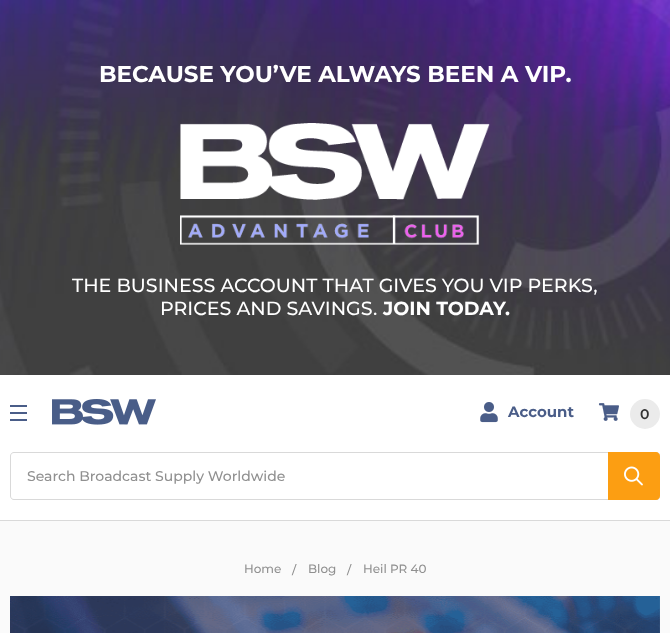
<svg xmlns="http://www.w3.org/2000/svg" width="670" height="633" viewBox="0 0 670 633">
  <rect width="100%" height="100%" fill="rgb(250,250,250)"/>
  <image x="0" y="0" width="670" height="375" href="pic1.png"/>
  <text x="99" y="82" font-family="Montserrat" font-size="23" font-weight="bold" fill="rgb(255,255,255)">BECAUSE YOU’VE ALWAYS BEEN A VIP.</text>
  <image x="180" y="123" width="310" height="122" href="pic2.png"/>
  <g font-family="Montserrat" font-size="19" font-weight="500" fill="rgb(255,255,255)">
    <text x="72" y="292">THE BUSINESS ACCOUNT THAT GIVES YOU VIP PERKS,</text>
    <text x="160" y="315">PRICES AND SAVINGS.</text>
  </g>
  <text x="383" y="315" font-family="Montserrat" font-size="19" font-weight="bold" fill="rgb(255,255,255)">JOIN TODAY.</text>
  <rect x="0" y="375" width="670" height="145" fill="rgb(255,255,255)"/>
  <rect x="0" y="520" width="670" height="1" fill="rgb(217,217,217)"/>
  <rect x="10" y="412" width="17" height="2" fill="rgb(74,93,136)"/>
  <rect x="10" y="405" width="17" height="2" fill="rgb(74,93,136)"/>
  <rect x="10" y="419" width="17" height="2" fill="rgb(74,93,136)"/>
  <image x="52" y="399" width="104" height="26" href="pic3.png"/>
  <image x="480" y="402" width="18" height="21" href="pic4.png"/>
  <text x="508" y="417" font-family="Montserrat" font-size="15" font-weight="bold" fill="rgb(74,93,136)">Account</text>
  <image x="598" y="403" width="21" height="18" href="pic5.png"/>
  <circle cx="645" cy="414" r="15" fill="rgb(235,235,235)"/>
  <text x="640" y="419" font-family="Montserrat" font-size="14" font-weight="600" fill="rgb(51,51,51)">0</text>
  <path d="M14 452C12 452 10 454 10 456V496C10 498 12 500 14 500H656C657 500 658 500 659 499H14C12 499 11 498 11 496V456C11 454 12 453 14 453H659L656 452ZM659 453V499C660 498 660 497 660 496V456C660 455 660 454 659 453Z" fill="rgb(217,217,217)" fill-rule="evenodd"/>
  <text x="27" y="481" font-family="Montserrat" font-size="14" font-weight="500" fill="rgb(144,144,144)">Search Broadcast Supply Worldwide</text>
  <path d="M608 452H656C658 452 660 454 660 456V496C660 498 658 500 656 500H608Z" fill="rgb(252,158,18)"/>
  <image x="624" y="466" width="19" height="20" href="pic6.png"/>
  <g font-family="Montserrat" font-size="12" font-weight="500" fill="rgb(144,144,144)">
    <text x="244" y="573">Home</text>
    <text x="292" y="574">/</text>
    <text x="308" y="573">Blog</text>
    <text x="347" y="574">/</text>
    <text x="363" y="573">Heil PR 40</text>
  </g>
  <image x="10" y="596" width="650" height="37" href="pic7.png"/>
</svg>
